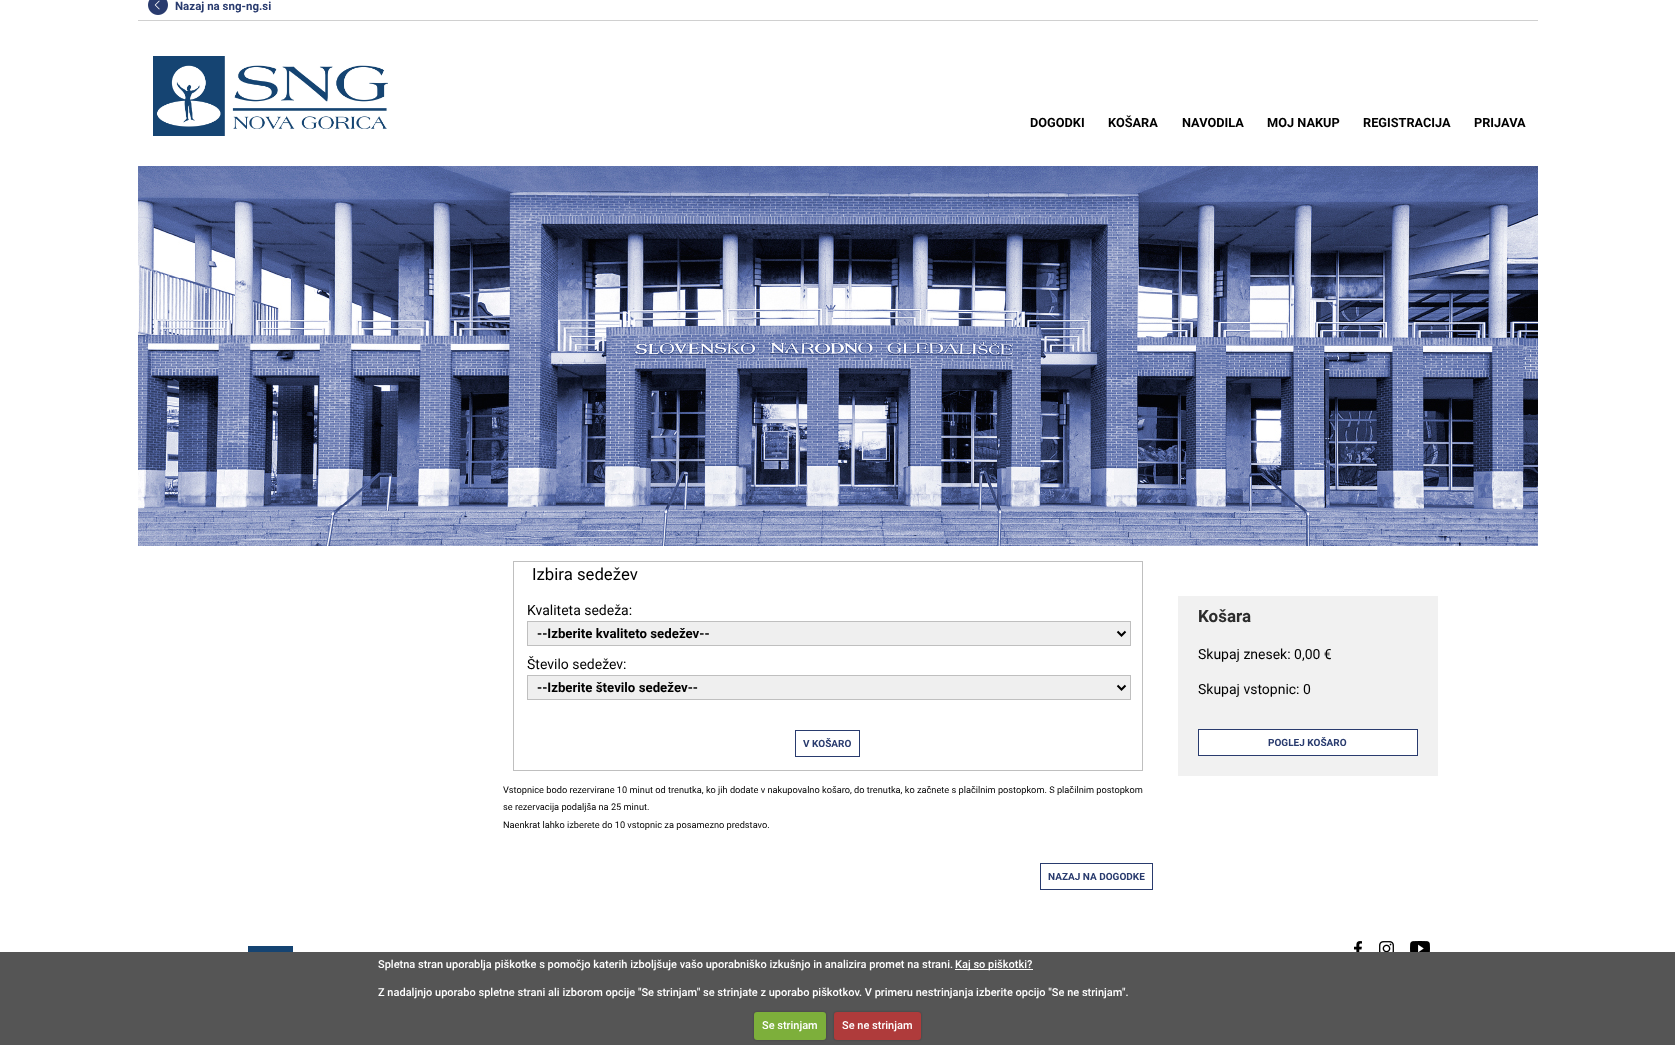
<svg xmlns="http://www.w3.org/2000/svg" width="1675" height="1045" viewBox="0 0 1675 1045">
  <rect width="100%" height="100%" fill="rgb(255,255,255)"/>
  <rect x="138" y="20" width="1400" height="1" fill="rgb(208,208,208)"/>
  <image x="148" y="0" width="20" height="15" href="pic1.png"/>
  <text x="175" y="10" font-family="Roboto" font-size="11.5" font-weight="bold" fill="rgb(41,59,110)">Nazaj na sng-ng.si</text>
  <image x="153" y="56" width="235" height="80" href="pic2.png"/>
  <g font-family="Roboto" font-size="12.75" font-weight="bold" fill="rgb(0,0,0)">
    <text x="1030" y="127">DOGODKI</text>
    <text x="1108" y="127">KOŠARA</text>
    <text x="1182" y="127">NAVODILA</text>
    <text x="1267" y="127">MOJ NAKUP</text>
    <text x="1363" y="127">REGISTRACIJA</text>
    <text x="1474" y="127">PRIJAVA</text>
  </g>
  <image x="138" y="166" width="1400" height="380" href="pic3.png"/>
  <rect x="513.5" y="561.5" width="629" height="209" fill="none" stroke="rgb(191,191,191)"/>
  <text x="532" y="580" font-family="Roboto" font-size="16.75" fill="rgb(0,0,0)">Izbira sedežev</text>
  <text x="527" y="615" font-family="Roboto" font-size="14" fill="rgb(0,0,0)">Kvaliteta sedeža:</text>
  <rect x="527.5" y="621.5" width="603" height="24" fill="rgb(239,239,239)" stroke="rgb(191,191,191)"/>
  <path d="M1117.5 631.5L1121.5 635.5L1125.5 631.5" fill="none" stroke="rgb(0,0,0)" stroke-width="2"/>
  <text x="537" y="638" font-family="Roboto" font-size="13.25" font-weight="bold" fill="rgb(0,0,0)">--Izberite kvaliteto sedežev--</text>
  <text x="527" y="669" font-family="Roboto" font-size="14" fill="rgb(0,0,0)">Število sedežev:</text>
  <rect x="527.5" y="675.5" width="603" height="24" fill="rgb(239,239,239)" stroke="rgb(191,191,191)"/>
  <path d="M1117.5 685.5L1121.5 689.5L1125.5 685.5" fill="none" stroke="rgb(0,0,0)" stroke-width="2"/>
  <text x="537" y="692" font-family="Roboto" font-size="13.25" font-weight="bold" fill="rgb(0,0,0)">--Izberite število sedežev--</text>
  <rect x="795.5" y="730.5" width="64" height="26" fill="none" stroke="rgb(41,59,110)"/>
  <text x="803" y="747" font-family="Roboto" font-size="10" font-weight="bold" fill="rgb(41,59,110)">V KOŠARO</text>
  <g font-family="Roboto" font-size="9.22" fill="rgb(0,0,0)">
    <text>
      <tspan x="503" y="793">Vstopnice bodo rezervirane 10 minut od trenutka, ko jih dodate v nakupovalno košaro, do trenutka, ko začnete s plačilnim postopkom. S plačilnim postopkom</tspan>
      <tspan x="503" y="810">se rezervacija podaljša na 25 minut.</tspan>
      <tspan x="503" y="828">Naenkrat lahko izberete do 10 vstopnic za posamezno predstavo.</tspan>
    </text>
  </g>
  <rect x="1040.5" y="863.5" width="112" height="26" fill="none" stroke="rgb(41,59,110)"/>
  <text x="1048" y="880" font-family="Roboto" font-size="10" font-weight="bold" fill="rgb(41,59,110)">NAZAJ NA DOGODKE</text>
  <rect x="1178" y="596" width="260" height="180" fill="rgb(241,241,241)"/>
  <text x="1198" y="622" font-family="Roboto" font-size="17" font-weight="bold" fill="rgb(45,45,45)">Košara</text>
  <g font-family="Roboto" font-size="14" fill="rgb(0,0,0)">
    <text x="1198" y="659">Skupaj znesek: 0,00 €</text>
    <text x="1198" y="694">Skupaj vstopnic: 0</text>
  </g>
  <rect x="1198.5" y="729.5" width="219" height="26" fill="rgb(255,255,255)" stroke="rgb(41,59,110)"/>
  <text x="1268" y="746" font-family="Roboto" font-size="10" font-weight="bold" fill="rgb(41,59,110)">POGLEJ KOŠARO</text>
  <image x="248" y="946" width="147" height="6" href="pic4.png"/>
  <image x="1354" y="941" width="8" height="11" href="pic5.png"/>
  <image x="1379" y="941" width="15" height="11" href="pic6.png"/>
  <image x="1410" y="941" width="20" height="11" href="pic7.png"/>
  <rect x="0" y="952" width="1675" height="93" fill="rgb(85,85,85)"/>
  <text x="378" y="968" font-family="Roboto" font-size="11" font-weight="500" fill="rgb(255,255,255)">Spletna stran uporablja piškotke s pomočjo katerih izboljšuje vašo uporabniško izkušnjo in analizira promet na strani.</text>
  <rect x="955" y="969" width="78" height="1" fill="rgb(255,255,255)"/>
  <g font-family="Roboto" font-size="11" font-weight="500" fill="rgb(255,255,255)">
    <text x="955" y="968">Kaj so piškotki?</text>
    <text x="378" y="996">Z nadaljnjo uporabo spletne strani ali izborom opcije "Se strinjam" se strinjate z uporabo piškotkov. V primeru nestrinjanja izberite opcijo "Se ne strinjam".</text>
  </g>
  <rect x="754" y="1012" width="72" height="28" rx="3" fill="rgba(0,0,0,0.25)" filter="blur(1px)"/>
  <rect x="754" y="1012" width="72" height="28" rx="3" fill="rgb(125,175,59)"/>
  <text x="762" y="1029" font-family="Roboto" font-size="11" font-weight="500" fill="rgb(255,255,255)">Se strinjam</text>
  <rect x="834" y="1012" width="87" height="28" rx="3" fill="rgba(0,0,0,0.25)" filter="blur(1px)"/>
  <rect x="834" y="1012" width="87" height="28" rx="3" fill="rgb(175,59,59)"/>
  <text x="842" y="1029" font-family="Roboto" font-size="11" font-weight="500" fill="rgb(255,255,255)">Se ne strinjam</text>
</svg>
